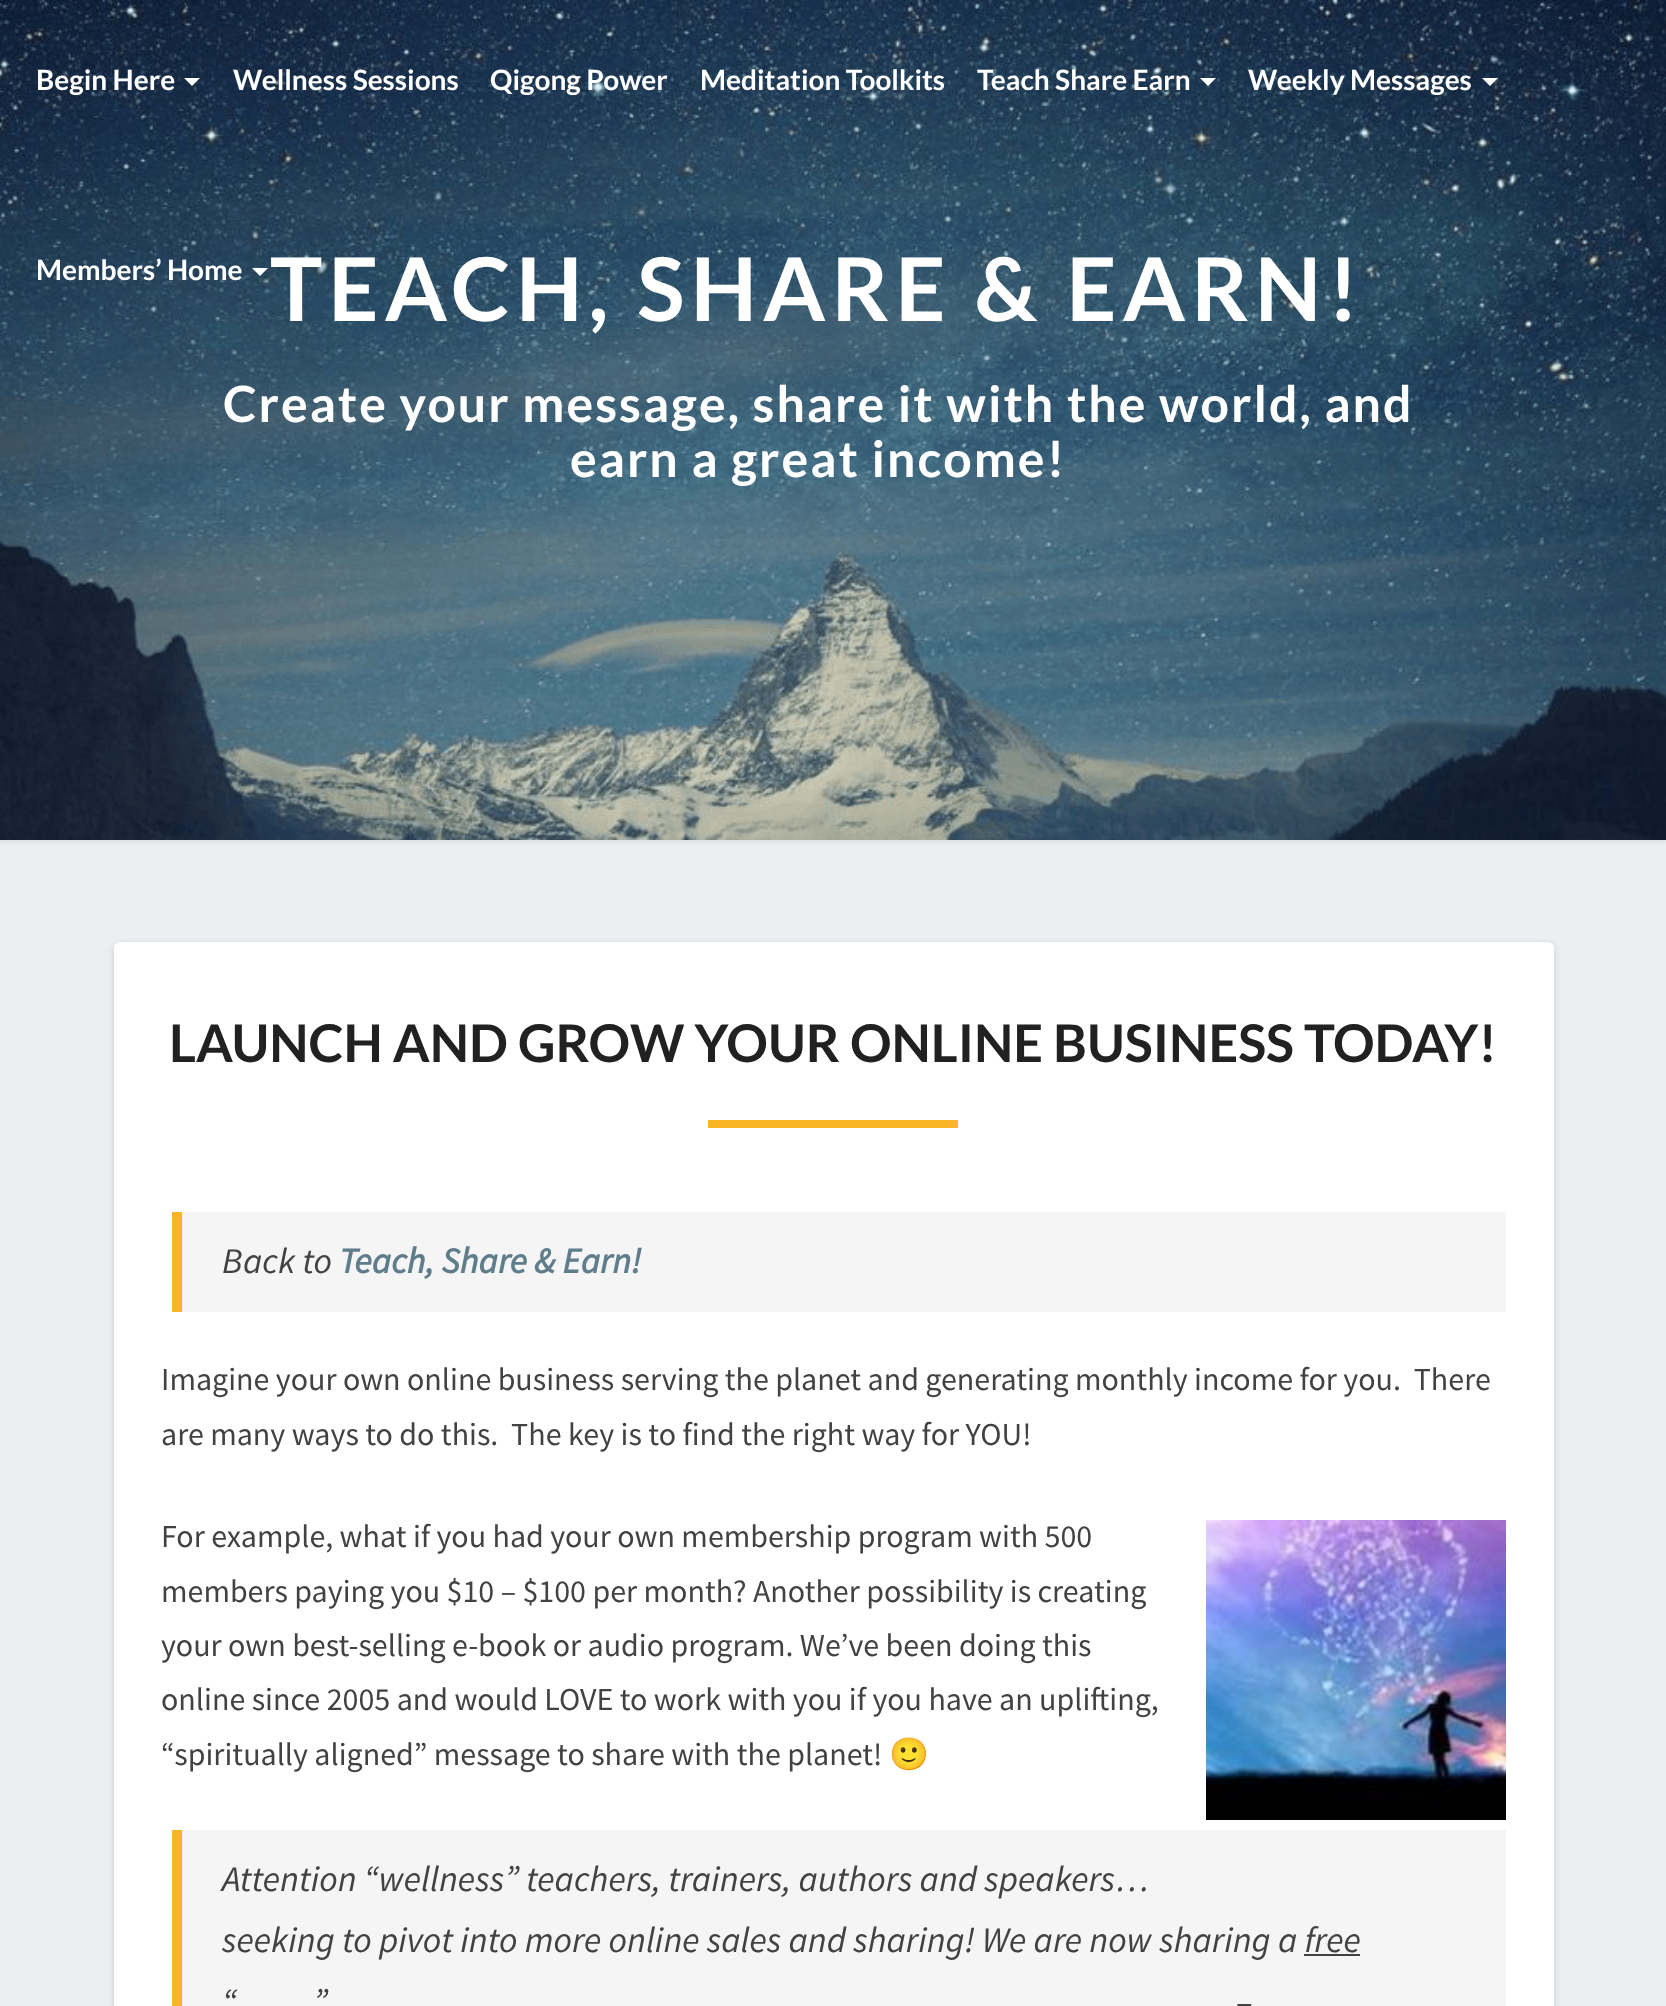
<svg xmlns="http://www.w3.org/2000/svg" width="1666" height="2006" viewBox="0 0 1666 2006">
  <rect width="100%" height="100%" fill="rgb(236,239,241)"/>
  <rect x="-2" y="-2" width="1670" height="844" fill="rgba(182,182,182,0.3)" filter="blur(2px)"/>
  <image x="0" y="0" width="1666" height="840" href="pic1.png"/>
  <text x="36" y="90" font-family="Lato" font-size="28" font-weight="bold" fill="rgb(255,255,255)">Begin Here</text>
  <path d="M184 78H200L192 86Z" fill="rgb(255,255,255)"/>
  <g font-family="Lato" font-size="28" font-weight="bold" fill="rgb(255,255,255)">
    <text x="233" y="90">Wellness Sessions</text>
    <text x="490" y="90">Qigong Power</text>
    <text x="700" y="90">Meditation Toolkits</text>
    <text x="977" y="90">Teach Share Earn</text>
  </g>
  <path d="M1200 78H1216L1208 86Z" fill="rgb(255,255,255)"/>
  <text x="1248" y="90" font-family="Lato" font-size="28" font-weight="bold" fill="rgb(255,255,255)">Weekly Messages</text>
  <path d="M1482 78H1498L1490 86Z" fill="rgb(255,255,255)"/>
  <text x="36" y="280" font-family="Lato" font-size="28" font-weight="bold" fill="rgb(255,255,255)">Members’ Home</text>
  <path d="M252 268H268L260 276Z" fill="rgb(255,255,255)"/>
  <text x="270" y="321" font-family="Lato" font-size="88" font-weight="bold" letter-spacing="6" fill="rgb(255,255,255)">TEACH, SHARE &amp; EARN!</text>
  <g font-family="Lato" font-size="50" font-weight="bold" letter-spacing="2" fill="rgb(255,255,255)">
    <text x="223" y="422">Create your message, share it with the world, and</text>
    <text x="570" y="477">earn a great income!</text>
  </g>
  <rect x="114" y="944" width="1440" height="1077" rx="6" fill="rgba(0,0,0,0.15)" filter="blur(3px)"/>
  <rect x="114" y="942" width="1440" height="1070" rx="6" fill="rgb(255,255,255)"/>
  <text x="169" y="1062" font-family="Lato" font-size="52" font-weight="bold" fill="rgb(33,33,33)">LAUNCH AND GROW YOUR ONLINE BUSINESS TODAY!</text>
  <rect x="708" y="1120" width="250" height="8" fill="rgb(250,181,38)"/>
  <rect x="182" y="1212" width="1324" height="100" fill="rgb(245,245,245)"/>
  <rect x="172" y="1212" width="10" height="100" fill="rgb(250,181,38)"/>
  <text x="222" y="1273" font-family="Source Sans Pro" font-size="36" font-style="italic" fill="rgb(66,66,66)">Back to</text>
  <text x="339" y="1273" font-family="Source Sans Pro" font-size="36" font-weight="bold" font-style="italic" fill="rgb(96,125,139)">Teach, Share &amp; Earn!</text>
  <g font-family="Source Sans Pro" font-size="32" fill="rgb(66,66,66)">
    <text xml:space="preserve"><tspan x="161" y="1390">Imagine your own online business serving the planet and generating monthly income for you.  There</tspan><tspan x="161" y="1445">are many ways to do this.  The key is to find the right way for YOU!</tspan></text>
    <text>
      <tspan x="161" y="1547">For example, what if you had your own membership program with 500</tspan>
      <tspan x="161" y="1602">members paying you $10 – $100 per month? Another possibility is creating</tspan>
      <tspan x="161" y="1656">your own best-selling e-book or audio program. We’ve been doing this</tspan>
      <tspan x="161" y="1710">online since 2005 and would LOVE to work with you if you have an uplifting,</tspan>
      <tspan x="161" y="1765">“spiritually aligned” message to share with the planet!</tspan>
    </text>
  </g>
  <text x="889" y="1765" font-family="Noto Color Emoji" font-size="32" fill="rgb(66,66,66)">🙂</text>
  <image x="1206" y="1520" width="300" height="300" href="pic2.png"/>
  <rect x="182" y="1830" width="1324" height="176" fill="rgb(245,245,245)"/>
  <rect x="172" y="1830" width="10" height="176" fill="rgb(250,181,38)"/>
  <g font-family="Source Sans Pro" font-size="36" font-style="italic" fill="rgb(66,66,66)">
    <text>
      <tspan x="222" y="1891">Attention “wellness” teachers, trainers, authors and speakers…</tspan>
      <tspan x="222" y="1952">seeking to pivot into more online sales and sharing! We are now sharing a free</tspan>
    </text>
  </g>
  <rect x="1304" y="1954" width="56" height="2" fill="rgb(66,66,66)"/>
  <g font-family="Source Sans Pro" font-size="36" font-style="italic" fill="rgb(66,66,66)">
    <text x="222" y="2014">“</text>
    <text x="313" y="2014">”</text>
    <text x="1236" y="2014">–</text>
  </g>
</svg>
